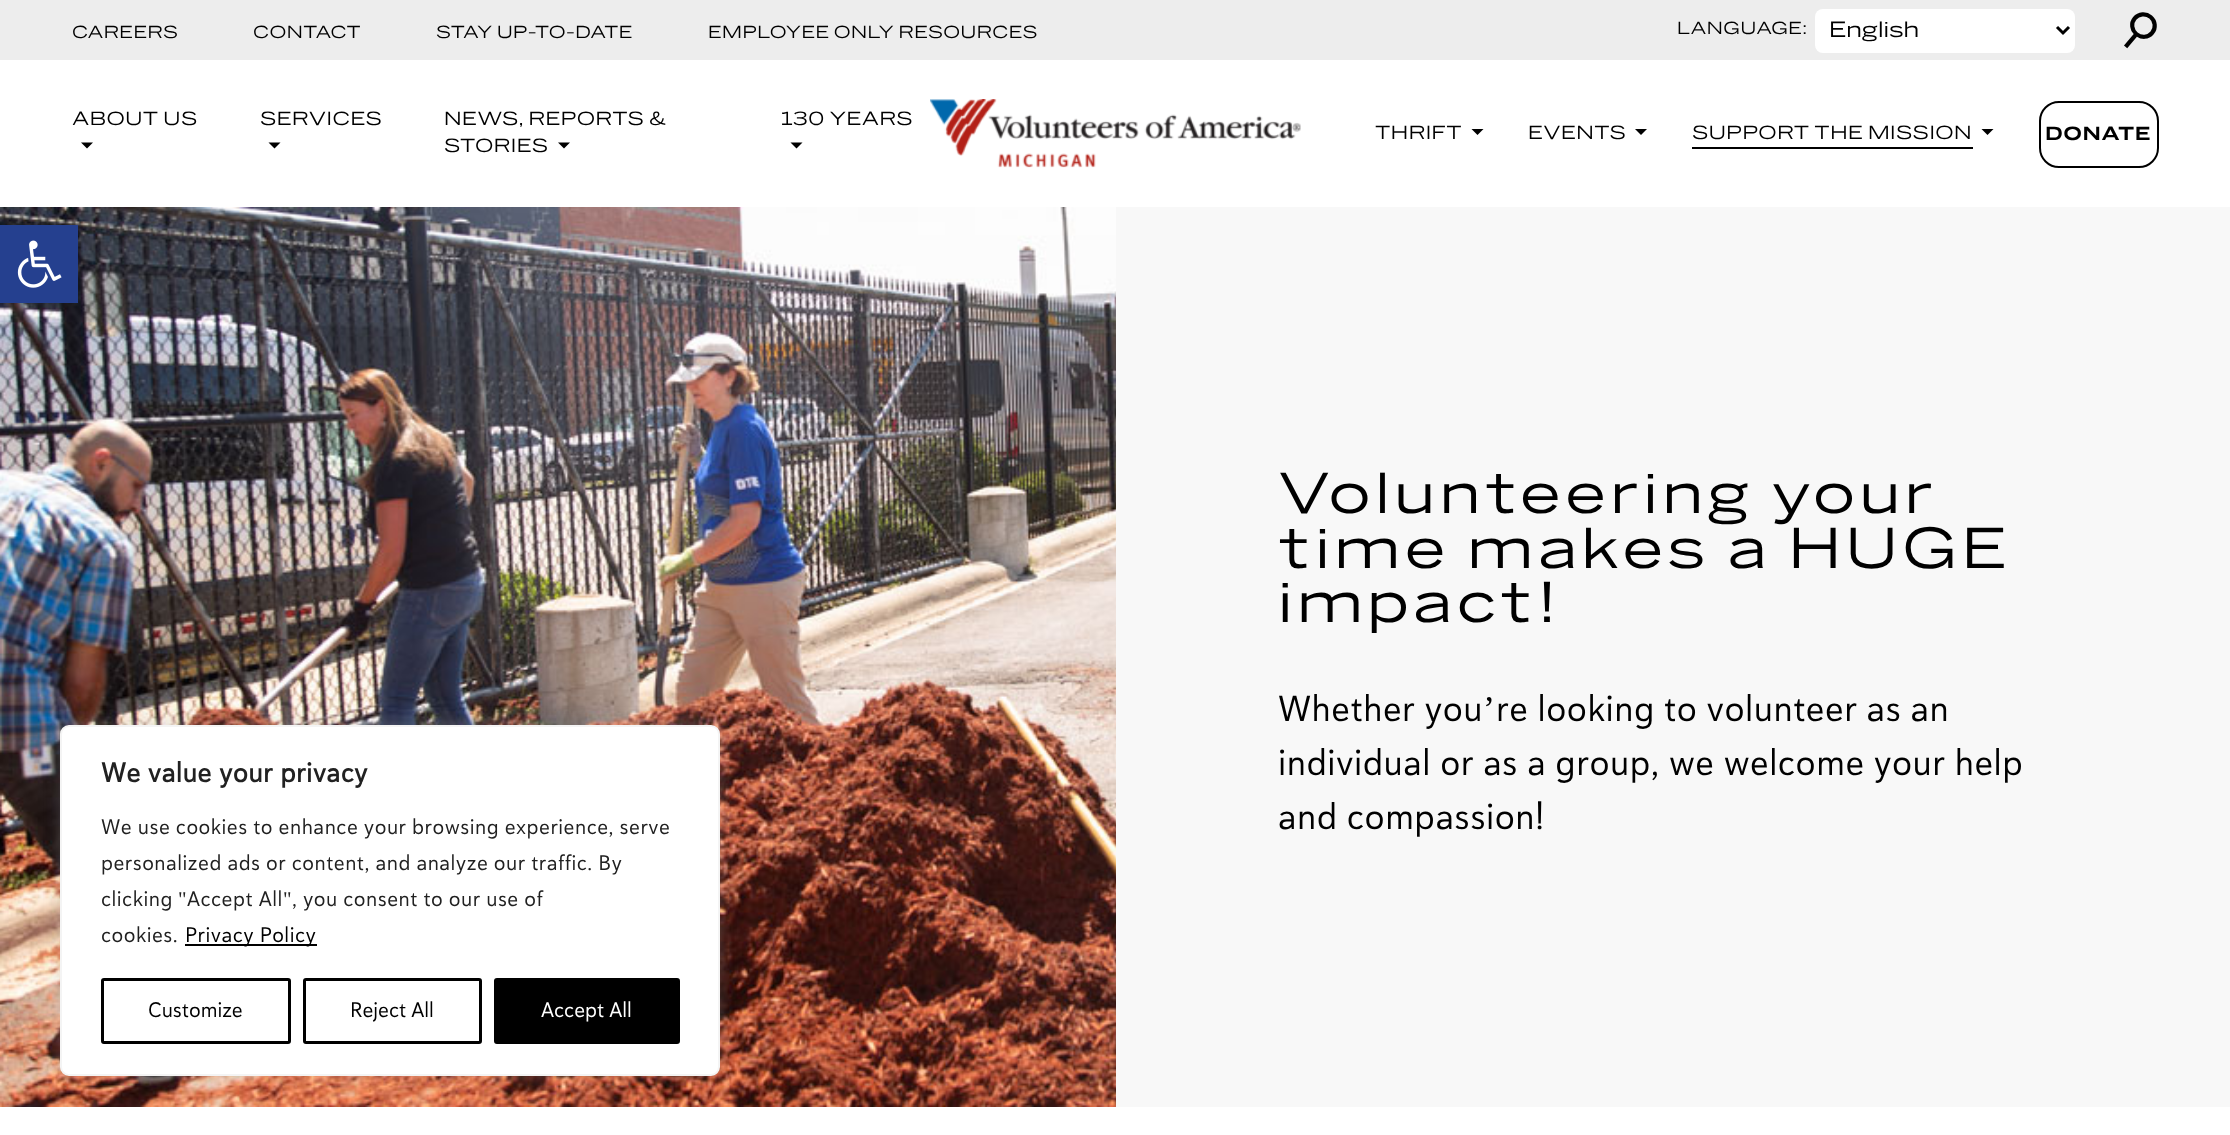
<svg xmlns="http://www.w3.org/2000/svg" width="2230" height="1135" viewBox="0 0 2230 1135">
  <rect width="100%" height="100%" fill="rgb(255,255,255)"/>
  <rect x="0" y="0" width="2230" height="60" fill="rgb(237,237,237)"/>
  <g font-family="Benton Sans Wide" font-size="16.5" letter-spacing="0.48" fill="rgb(0,0,0)">
    <text x="72" y="38">CAREERS</text>
    <text x="253" y="38">CONTACT</text>
    <text x="436" y="38">STAY UP-TO-DATE</text>
    <text x="708" y="38">EMPLOYEE ONLY RESOURCES</text>
    <text x="1677" y="34">LANGUAGE:</text>
  </g>
  <rect x="1815" y="9" width="260" height="44" rx="8" fill="rgb(255,255,255)"/>
  <path d="M2057 27L2063 33L2069 27" fill="none" stroke="rgb(0,0,0)" stroke-width="3"/>
  <text x="1829" y="37" font-family="Benton Sans Wide" font-size="21" fill="rgb(0,0,0)">English</text>
  <text x="2116" y="31" transform="rotate(40 2116 31)" font-family="DejaVu Sans" font-size="48" letter-spacing="0.48" fill="rgb(0,0,0)">⚲</text>
  <text x="72" y="125" font-family="Benton Sans Wide" font-size="18" letter-spacing="0.48" fill="rgb(0,0,0)">ABOUT US</text>
  <path d="M81 142.5H93L87 148.5Z" fill="rgb(0,0,0)"/>
  <text x="260" y="125" font-family="Benton Sans Wide" font-size="18" letter-spacing="0.48" fill="rgb(0,0,0)">SERVICES</text>
  <path d="M268.5 142.5H280.5L274.5 148.5Z" fill="rgb(0,0,0)"/>
  <g font-family="Benton Sans Wide" font-size="18" letter-spacing="0.48" fill="rgb(0,0,0)">
    <text>
      <tspan x="444" y="125">NEWS, REPORTS &amp;</tspan>
      <tspan x="444" y="152">STORIES</tspan>
    </text>
  </g>
  <path d="M558 142.5H570L564 148.5Z" fill="rgb(0,0,0)"/>
  <text x="781" y="125" font-family="Benton Sans Wide" font-size="18" letter-spacing="0.48" fill="rgb(0,0,0)">130 YEARS</text>
  <path d="M790.5 142.5H802.5L796.5 148.5Z" fill="rgb(0,0,0)"/>
  <image x="930" y="99" width="371" height="69" href="pic1.png"/>
  <text x="1375" y="139" font-family="Benton Sans Wide" font-size="18" letter-spacing="0.48" fill="rgb(0,0,0)">THRIFT</text>
  <path d="M1471.5 129H1483.5L1477.5 135Z" fill="rgb(0,0,0)"/>
  <text x="1528" y="139" font-family="Benton Sans Wide" font-size="18" letter-spacing="0.48" fill="rgb(0,0,0)">EVENTS</text>
  <path d="M1635 129H1647L1641 135Z" fill="rgb(0,0,0)"/>
  <text x="1692" y="139" font-family="Benton Sans Wide" font-size="18" letter-spacing="0.48" fill="rgb(0,0,0)">SUPPORT THE MISSION</text>
  <rect x="1692" y="147" width="281" height="2" fill="rgb(0,0,0)"/>
  <path d="M1981.5 129H1993.5L1987.5 135Z" fill="rgb(0,0,0)"/>
  <rect x="2040" y="102" width="118" height="65" rx="19" fill="none" stroke="rgb(0,0,0)" stroke-width="2"/>
  <text x="2045" y="140" font-family="Benton Sans Wide" font-size="18" font-weight="bold" letter-spacing="0.48" fill="rgb(0,0,0)">DONATE</text>
  <image x="0" y="207" width="1116" height="900" href="pic3.png"/>
  <rect x="0" y="225" width="78" height="78" fill="rgba(0,0,0,0.1)" filter="blur(7.5px)"/>
  <rect x="0" y="225" width="78" height="78" fill="rgb(37,64,143)"/>
  <image x="17" y="240" width="45" height="48" href="pic2.png"/>
  <rect x="1116" y="207" width="1114" height="900" fill="rgb(248,248,248)"/>
  <g font-family="Benton Sans Wide" font-size="54.5" letter-spacing="4.75" fill="rgb(0,0,0)">
    <text>
      <tspan x="1278" y="513">Volunteering your</tspan>
      <tspan x="1278" y="568">time makes a HUGE</tspan>
      <tspan x="1278" y="622">impact!</tspan>
    </text>
  </g>
  <text x="1278" y="721" font-family="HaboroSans" font-size="36" letter-spacing="0.48" fill="rgb(0,0,0)">Whether you</text>
  <text x="1483" y="721" font-family="Liberation Serif" font-size="36" letter-spacing="0.48" fill="rgb(0,0,0)">’</text>
  <g font-family="HaboroSans" font-size="36" letter-spacing="0.48" fill="rgb(0,0,0)">
    <text x="1496" y="721">re looking to volunteer as an</text>
    <text>
      <tspan x="1278" y="775">individual or as a group, we welcome your help</tspan>
      <tspan x="1278" y="829">and compassion!</tspan>
    </text>
  </g>
  <rect x="60" y="723" width="660" height="351" rx="9" fill="rgba(172,171,171,0.3)" filter="blur(7.5px)"/>
  <rect x="61" y="726" width="658" height="349" rx="8" fill="rgb(255,255,255)" stroke="rgb(244,244,244)" stroke-width="2"/>
  <text x="101" y="782" font-family="HaboroSans" font-size="27" font-weight="bold" letter-spacing="0.48" fill="rgb(33,33,33)">We value your privacy</text>
  <g font-family="HaboroSans" font-size="21" letter-spacing="0.48" fill="rgb(33,33,33)">
    <text>
      <tspan x="101" y="834">We use cookies to enhance your browsing experience, serve</tspan>
      <tspan x="101" y="870">personalized ads or content, and analyze our traffic. By</tspan>
      <tspan x="101" y="906">clicking</tspan>
    </text>
  </g>
  <text x="178" y="906" font-family="Liberation Serif" font-size="21" letter-spacing="0.48" fill="rgb(33,33,33)">"</text>
  <text x="187" y="906" font-family="HaboroSans" font-size="21" letter-spacing="0.48" fill="rgb(33,33,33)">Accept All</text>
  <text x="283" y="906" font-family="Liberation Serif" font-size="21" letter-spacing="0.48" fill="rgb(33,33,33)">"</text>
  <g font-family="HaboroSans" font-size="21" letter-spacing="0.48" fill="rgb(33,33,33)">
    <text x="292" y="906">, you consent to our use of</text>
    <text x="101" y="942">cookies.</text>
  </g>
  <rect x="185" y="944" width="132" height="2" fill="rgb(0,0,0)"/>
  <text x="185" y="942" font-family="HaboroSans" font-size="21" letter-spacing="0.48" fill="rgb(0,0,0)">Privacy Policy</text>
  <rect x="102.5" y="979.5" width="187" height="63" rx="1.5" fill="none" stroke="rgb(0,0,0)" stroke-width="3"/>
  <text x="148" y="1017" font-family="HaboroSans" font-size="21" fill="rgb(0,0,0)">Customize</text>
  <rect x="304.5" y="979.5" width="176" height="63" rx="1.5" fill="none" stroke="rgb(0,0,0)" stroke-width="3"/>
  <text x="350" y="1017" font-family="HaboroSans" font-size="21" fill="rgb(0,0,0)">Reject All</text>
  <rect x="495.5" y="979.5" width="183" height="63" rx="1.5" fill="rgb(0,0,0)" stroke="rgb(0,0,0)" stroke-width="3"/>
  <text x="541" y="1017" font-family="HaboroSans" font-size="21" fill="rgb(255,255,255)">Accept All</text>
</svg>
